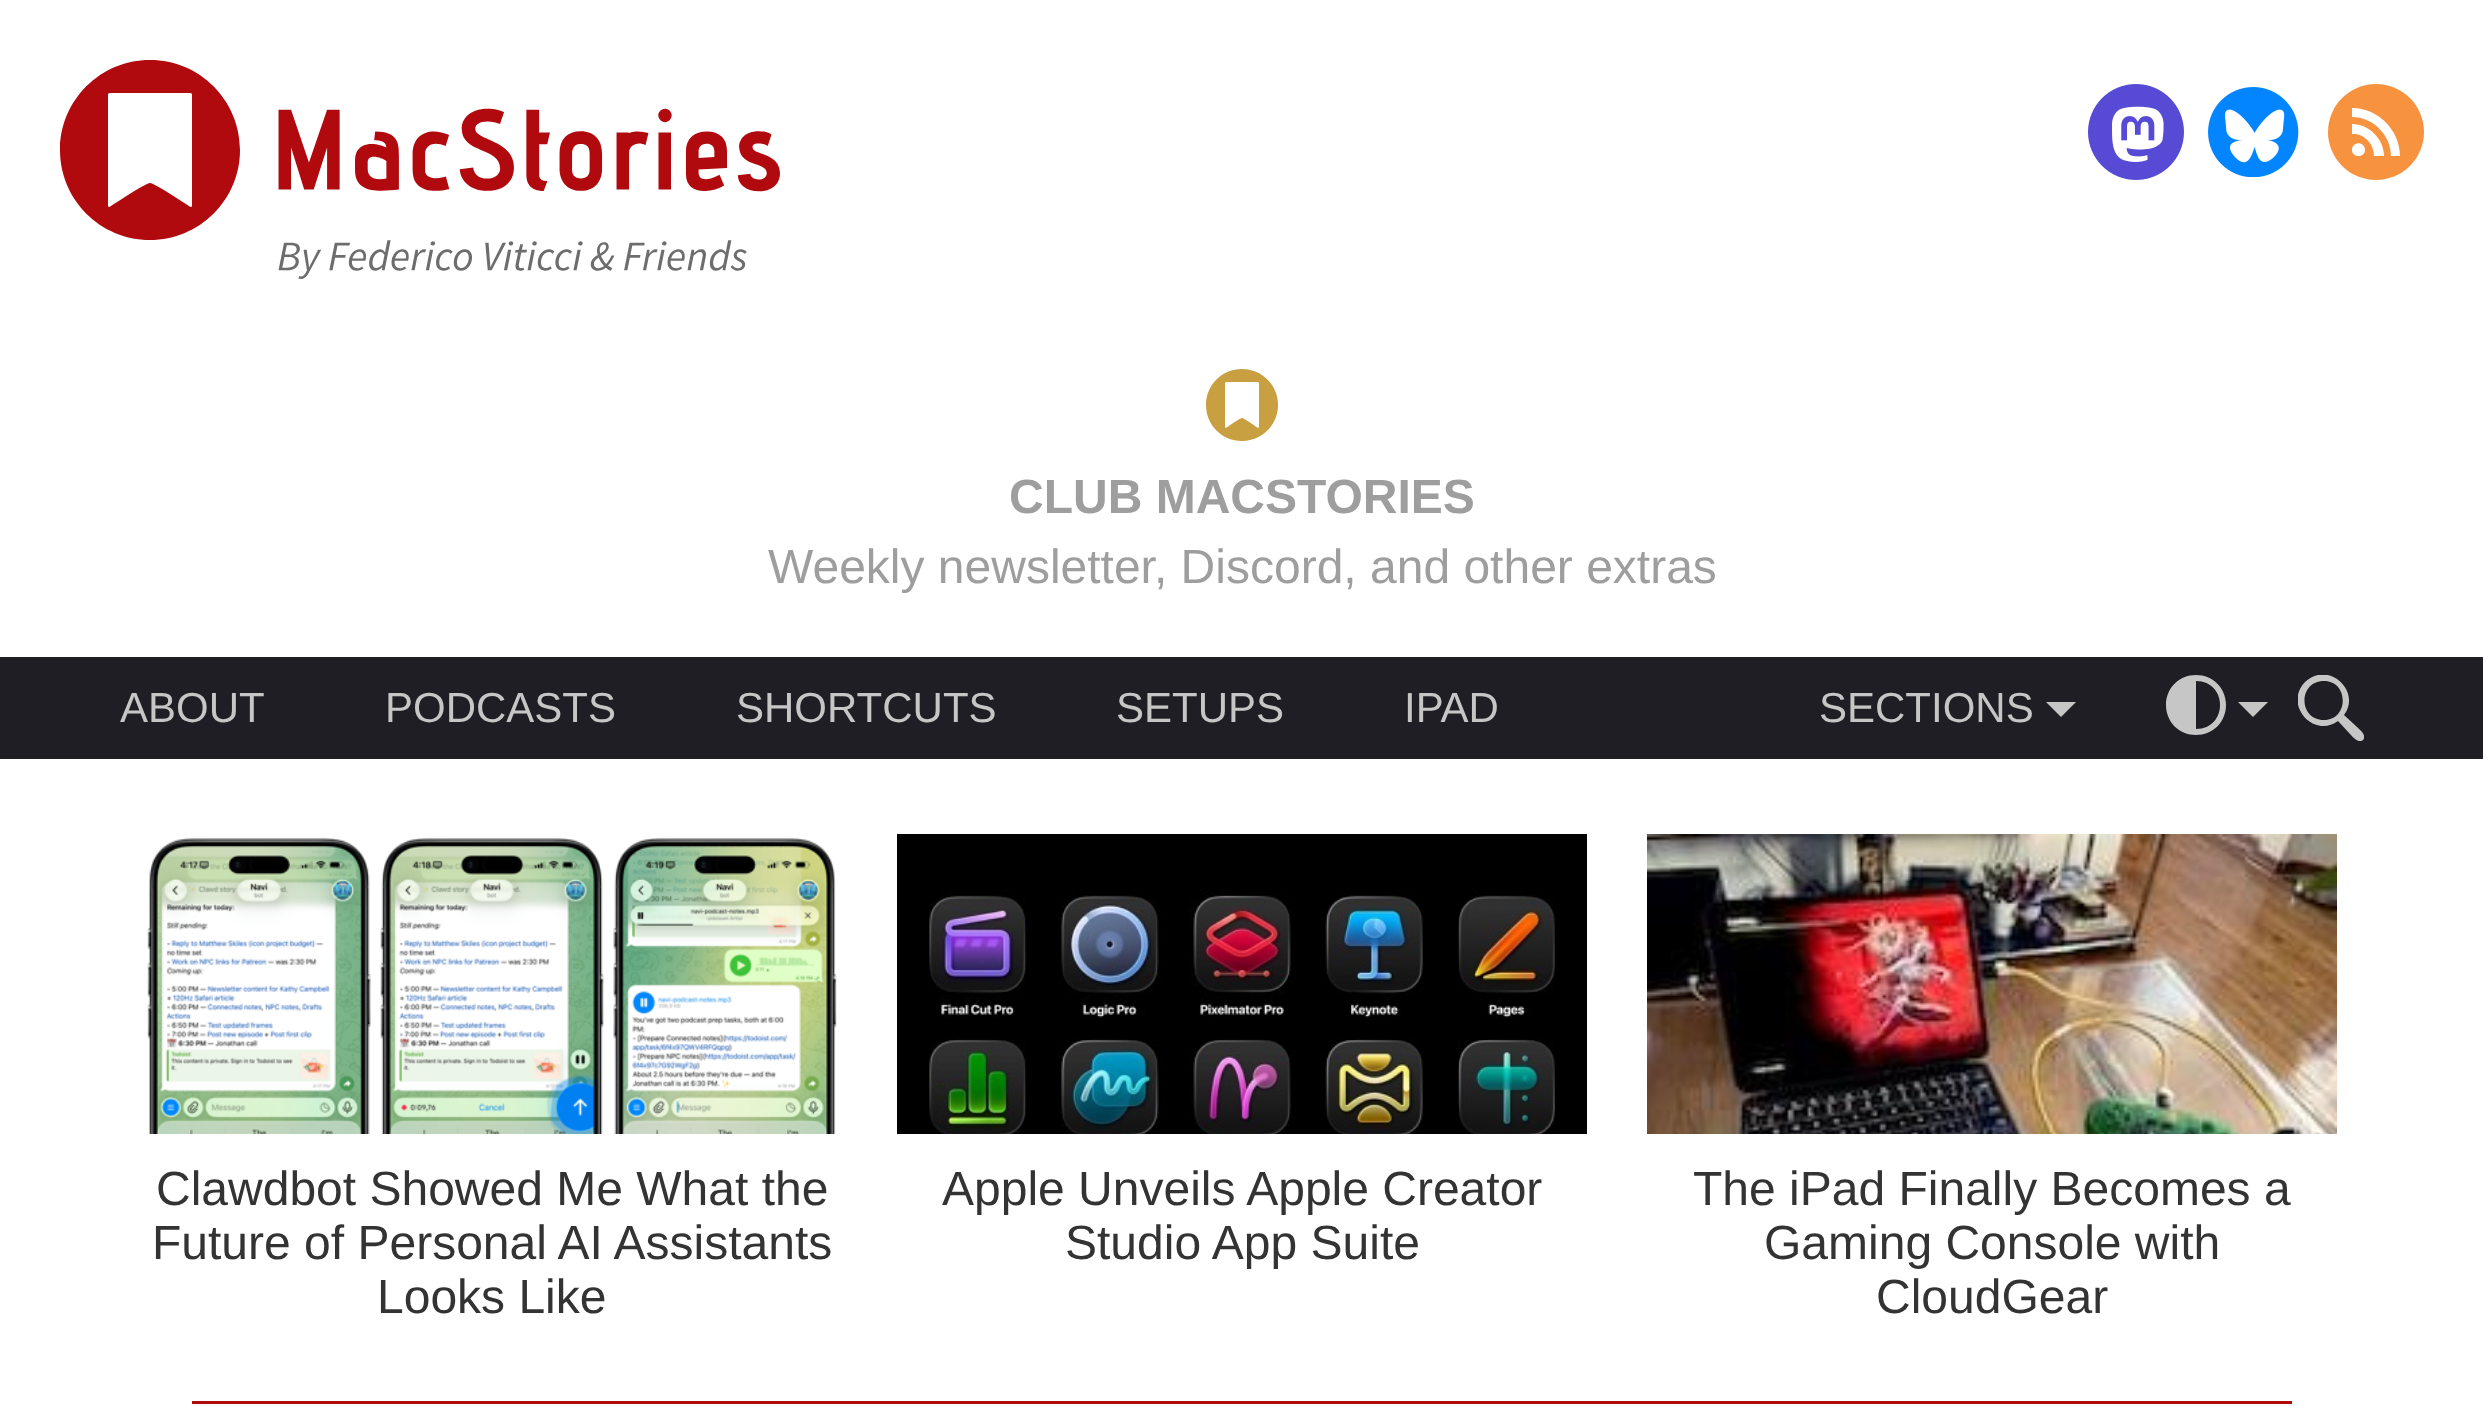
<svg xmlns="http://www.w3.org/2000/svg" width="2483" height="1415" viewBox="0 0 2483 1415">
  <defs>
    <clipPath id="clip1"><rect x="2298" y="675" width="66" height="66"/></clipPath>
  </defs>
  <rect width="100%" height="100%" fill="rgb(255,255,255)"/>
  <image x="60" y="60" width="720" height="219" href="pic1.png"/>
  <image x="2088" y="84" width="96" height="96" href="pic2.png"/>
  <image x="2208" y="87" width="91" height="90" href="pic3.png"/>
  <circle cx="2376" cy="132" r="48" fill="rgb(247,146,63)"/>
  <path d="M2365 150C2365 158 2352 158 2352 150C2352 141 2365 141 2365 150ZM2352 134C2364 133 2374 144 2374 156H2384C2384 139 2369 124 2352 124ZM2352 117C2373 117 2391 135 2391 156H2400C2400 130 2378 108 2352 108Z" fill="rgb(255,255,255)"/>
  <path d="M1242 369C1222 369 1206 385 1206 405C1206 425 1222 441 1242 441C1262 441 1278 425 1278 405C1278 385 1262 369 1242 369ZM1259 427L1258 428C1258 428 1244 418 1242 418C1240 418 1226 428 1226 428L1225 427V383L1226 382H1258L1259 383Z" fill="rgb(200,159,65)"/>
  <text x="1009" y="513" font-family="Liberation Sans" font-size="48" font-weight="bold" fill="rgb(158,158,158)">CLUB MACSTORIES</text>
  <text x="768" y="583" font-family="Liberation Sans" font-size="48" fill="rgb(158,158,158)">Weekly newsletter, Discord, and other extras</text>
  <rect x="0" y="657" width="2483" height="102" fill="rgb(30,30,36)"/>
  <g font-family="Liberation Sans" font-size="42" fill="rgb(198,198,198)">
    <text x="120" y="722">ABOUT</text>
    <text x="385" y="722">PODCASTS</text>
    <text x="736" y="722">SHORTCUTS</text>
    <text x="1116" y="722">SETUPS</text>
    <text x="1404" y="722">IPAD</text>
    <text x="1819" y="722">SECTIONS</text>
  </g>
  <path d="M2046 702H2076L2061 717Z" fill="rgb(198,198,198)"/>
  <path d="M2196 681C2228 681 2228 729 2196 729ZM2196 735C2213 735 2226 722 2226 705C2226 688 2213 675 2196 675C2179 675 2166 688 2166 705C2166 722 2179 735 2196 735Z" fill="rgb(198,198,198)" fill-rule="evenodd"/>
  <path d="M2238 702H2268L2253 717Z" fill="rgb(198,198,198)"/>
  <g clip-path="url(#clip1)">
    <path d="M2338 721L2350 734C2352 736 2358 744 2363 740C2367 735 2360 730 2357 727L2344 715C2362 691 2328 660 2305 682C2283 705 2314 739 2338 721ZM2324 720C2349 720 2349 681 2324 681C2298 681 2298 720 2324 720Z" fill="rgb(198,198,198)" fill-rule="evenodd"/>
  </g>
  <image x="147" y="837" width="690" height="297" href="pic4.png"/>
  <g font-family="Liberation Sans" font-size="48" fill="rgb(51,51,51)">
    <text x="156" y="1205">Clawdbot Showed Me What the</text>
    <text x="152" y="1259">Future of Personal AI Assistants</text>
    <text x="377" y="1313">Looks Like</text>
  </g>
  <image x="897" y="834" width="690" height="300" href="pic5.png"/>
  <g font-family="Liberation Sans" font-size="48" fill="rgb(51,51,51)">
    <text x="942" y="1205">Apple Unveils Apple Creator</text>
    <text x="1065" y="1259">Studio App Suite</text>
  </g>
  <image x="1647" y="834" width="690" height="300" href="pic6.png"/>
  <g font-family="Liberation Sans" font-size="48" fill="rgb(51,51,51)">
    <text x="1693" y="1205">The iPad Finally Becomes a</text>
    <text x="1764" y="1259">Gaming Console with</text>
    <text x="1876" y="1313">CloudGear</text>
  </g>
  <rect x="192" y="1401" width="2100" height="3" fill="rgb(176,10,15)"/>
</svg>
